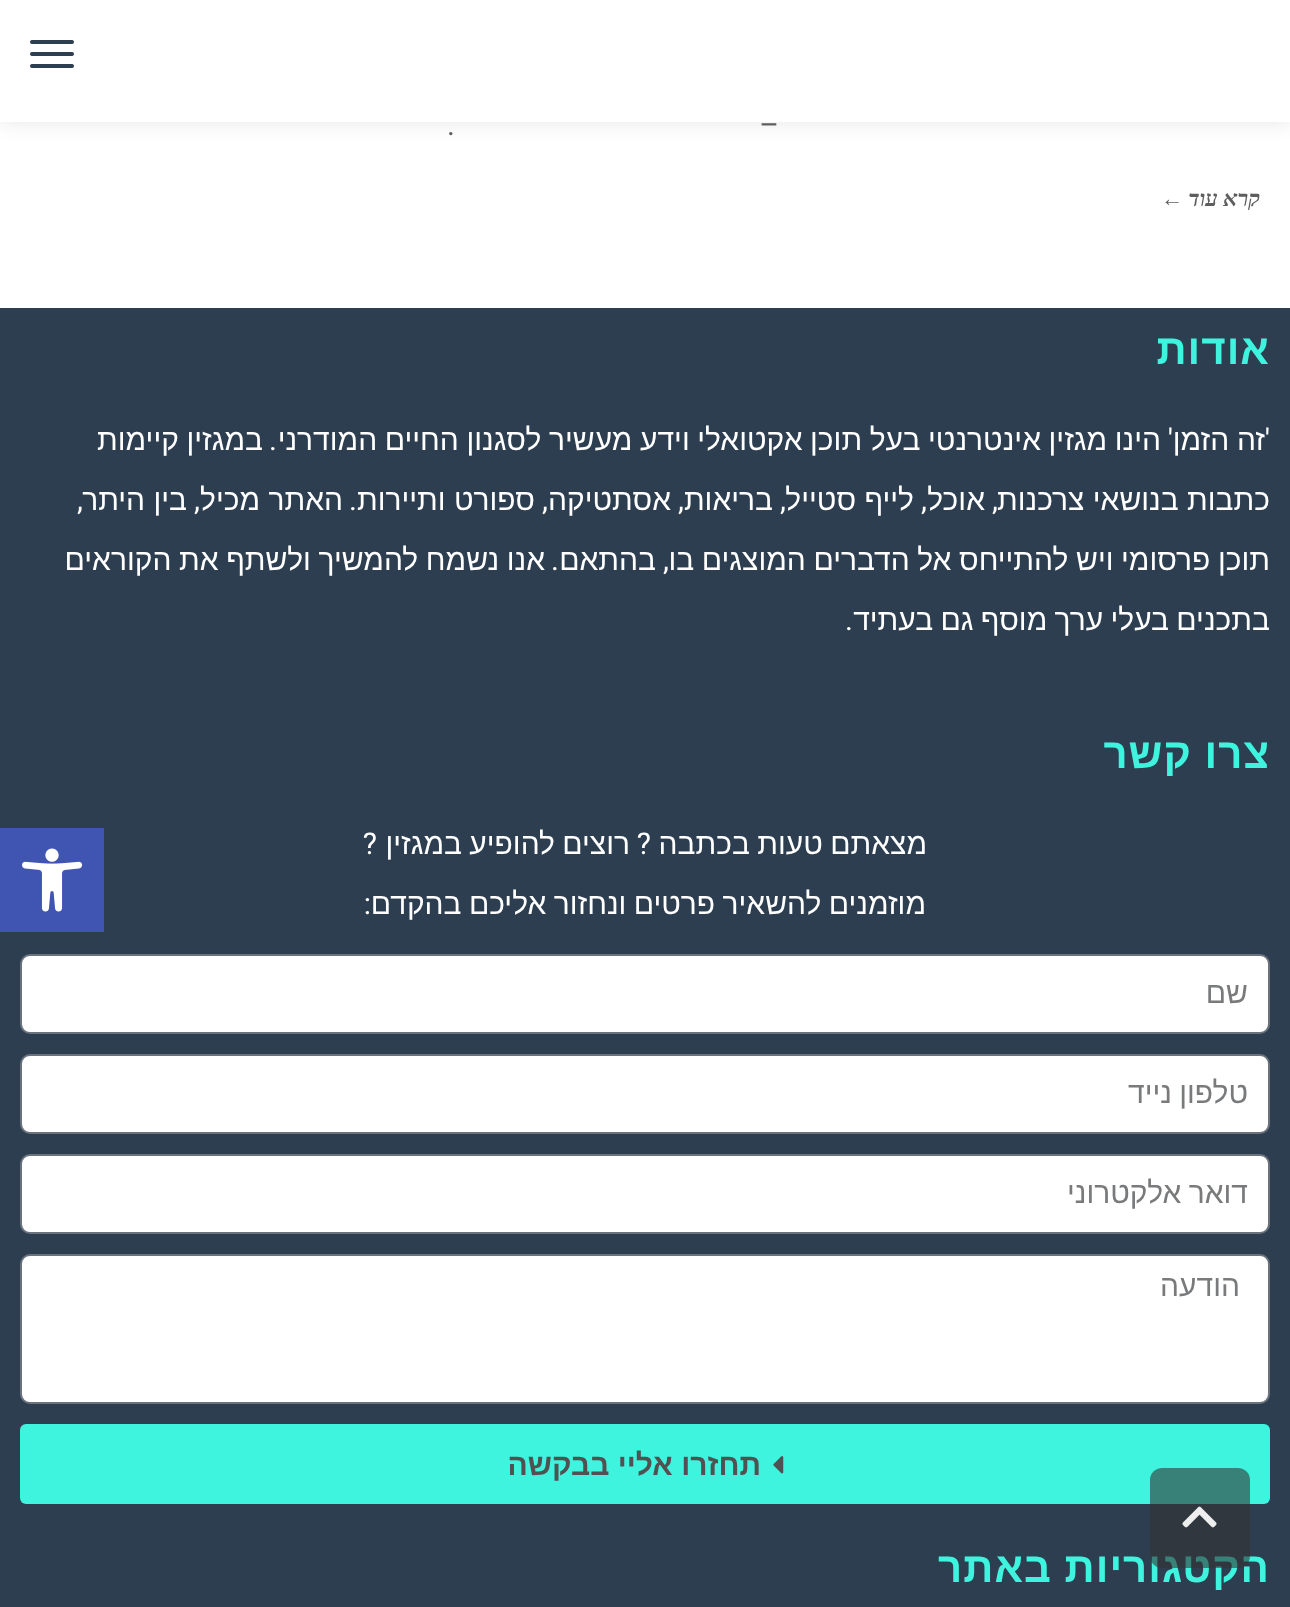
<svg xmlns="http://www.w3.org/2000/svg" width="1290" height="1607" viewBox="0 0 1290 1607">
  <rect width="100%" height="100%" fill="rgb(255,255,255)"/>
  <rect x="0" y="0" width="1290" height="122" fill="rgba(0,0,0,0.1)" filter="blur(10px)"/>
  <rect x="0" y="0" width="1290" height="122" fill="rgb(255,255,255)"/>
  <rect x="30" y="40" width="44" height="4" rx="2" fill="rgb(44,62,80)"/>
  <rect x="30" y="52" width="44" height="4" rx="2" fill="rgb(44,62,80)"/>
  <rect x="30" y="64" width="44" height="4" rx="2" fill="rgb(44,62,80)"/>
  <g font-family="Roboto" font-size="30" direction="rtl" fill="rgb(94,94,94)">
    <text x="779" y="135">–</text>
    <text x="455" y="135">.</text>
  </g>
  <text x="1260" y="206" font-family="Tinos" font-size="22" font-weight="bold" font-style="italic" direction="rtl" fill="rgb(94,94,94)">קרא עוד</text>
  <text x="1183" y="206" font-family="Liberation Sans" font-size="22" font-weight="bold" font-style="italic" direction="rtl" fill="rgb(94,94,94)">←</text>
  <rect x="0" y="308" width="1290" height="1299" fill="rgb(44,62,80)"/>
  <text x="1270" y="364" font-family="Liberation Sans" font-size="42" font-weight="bold" letter-spacing="1" direction="rtl" fill="rgb(63,244,223)">אודות</text>
  <text x="1270" y="450" font-family="Roboto" font-size="30" direction="rtl" fill="rgb(255,255,255)">'</text>
  <text x="1265" y="450" word-spacing="-0.75" font-family="Liberation Sans" font-size="30" direction="rtl" fill="rgb(255,255,255)">זה הזמן</text>
  <text x="1173" y="450" font-family="Roboto" font-size="30" direction="rtl" fill="rgb(255,255,255)">'</text>
  <text x="1161" y="450" word-spacing="-0.75" font-family="Liberation Sans" font-size="30" direction="rtl" fill="rgb(255,255,255)">הינו מגזין אינטרנטי בעל תוכן אקטואלי וידע מעשיר לסגנון החיים המודרני</text>
  <text x="277" y="450" font-family="Roboto" font-size="30" direction="rtl" fill="rgb(255,255,255)">.</text>
  <g font-family="Liberation Sans" font-size="30" direction="rtl" fill="rgb(255,255,255)">
    <text x="263" y="450" word-spacing="-0.75">במגזין קיימות</text>
    <text x="1270" y="510">כתבות בנושאי צרכנות</text>
  </g>
  <text x="998" y="510" font-family="Roboto" font-size="30" direction="rtl" fill="rgb(255,255,255)">,</text>
  <text x="985" y="510" font-family="Liberation Sans" font-size="30" direction="rtl" fill="rgb(255,255,255)">אוכל</text>
  <text x="927" y="510" font-family="Roboto" font-size="30" direction="rtl" fill="rgb(255,255,255)">,</text>
  <text x="914" y="510" font-family="Liberation Sans" font-size="30" direction="rtl" fill="rgb(255,255,255)">לייף סטייל</text>
  <text x="786" y="510" font-family="Roboto" font-size="30" direction="rtl" fill="rgb(255,255,255)">,</text>
  <text x="773" y="510" font-family="Liberation Sans" font-size="30" direction="rtl" fill="rgb(255,255,255)">בריאות</text>
  <text x="684" y="510" font-family="Roboto" font-size="30" direction="rtl" fill="rgb(255,255,255)">,</text>
  <text x="671" y="510" font-family="Liberation Sans" font-size="30" direction="rtl" fill="rgb(255,255,255)">אסתטיקה</text>
  <text x="548" y="510" font-family="Roboto" font-size="30" direction="rtl" fill="rgb(255,255,255)">,</text>
  <text x="535" y="510" font-family="Liberation Sans" font-size="30" direction="rtl" fill="rgb(255,255,255)">ספורט ותיירות</text>
  <text x="357" y="510" font-family="Roboto" font-size="30" direction="rtl" fill="rgb(255,255,255)">.</text>
  <text x="343" y="510" font-family="Liberation Sans" font-size="30" direction="rtl" fill="rgb(255,255,255)">האתר מכיל</text>
  <text x="200" y="510" font-family="Roboto" font-size="30" direction="rtl" fill="rgb(255,255,255)">,</text>
  <text x="187" y="510" font-family="Liberation Sans" font-size="30" direction="rtl" fill="rgb(255,255,255)">בין היתר</text>
  <text x="83" y="510" font-family="Roboto" font-size="30" direction="rtl" fill="rgb(255,255,255)">,</text>
  <text x="1270" y="570" word-spacing="-0.75" font-family="Liberation Sans" font-size="30" direction="rtl" fill="rgb(255,255,255)">תוכן פרסומי ויש להתייחס אל הדברים המוצגים בו</text>
  <text x="669" y="570" font-family="Roboto" font-size="30" direction="rtl" fill="rgb(255,255,255)">,</text>
  <text x="656" y="570" font-family="Liberation Sans" font-size="30" direction="rtl" fill="rgb(255,255,255)">בהתאם</text>
  <text x="559" y="570" font-family="Roboto" font-size="30" direction="rtl" fill="rgb(255,255,255)">.</text>
  <g font-family="Liberation Sans" font-size="30" direction="rtl" fill="rgb(255,255,255)">
    <text x="545" y="570" word-spacing="-0.75">אנו נשמח להמשיך ולשתף את הקוראים</text>
    <text x="1270" y="630" word-spacing="-1">בתכנים בעלי ערך מוסף גם בעתיד</text>
  </g>
  <text x="853" y="630" font-family="Roboto" font-size="30" direction="rtl" fill="rgb(255,255,255)">.</text>
  <text x="1270" y="768" font-family="Liberation Sans" font-size="42" font-weight="bold" letter-spacing="1" direction="rtl" fill="rgb(63,244,223)">צרו קשר</text>
  <text x="927" y="854" word-spacing="-1" font-family="Liberation Sans" font-size="30" direction="rtl" fill="rgb(255,255,255)">מצאתם טעות בכתבה</text>
  <text x="651" y="854" font-family="Roboto" font-size="30" direction="rtl" fill="rgb(255,255,255)">?</text>
  <text x="630" y="854" word-spacing="-1" font-family="Liberation Sans" font-size="30" direction="rtl" fill="rgb(255,255,255)">רוצים להופיע במגזין</text>
  <text x="377" y="854" font-family="Roboto" font-size="30" direction="rtl" fill="rgb(255,255,255)">?</text>
  <text x="926" y="914" word-spacing="-1" font-family="Liberation Sans" font-size="30" direction="rtl" fill="rgb(255,255,255)">מוזמנים להשאיר פרטים ונחזור אליכם בהקדם</text>
  <text x="371" y="914" font-family="Roboto" font-size="30" direction="rtl" fill="rgb(255,255,255)">:</text>
  <rect x="21" y="955" width="1248" height="78" rx="9" fill="rgb(255,255,255)" stroke="rgb(105,114,125)" stroke-width="2"/>
  <text x="1248" y="1003" font-family="Liberation Sans" font-size="30" direction="rtl" fill="rgb(121,122,124)">שם</text>
  <rect x="21" y="1055" width="1248" height="78" rx="9" fill="rgb(255,255,255)" stroke="rgb(105,114,125)" stroke-width="2"/>
  <text x="1248" y="1103" word-spacing="-1" font-family="Liberation Sans" font-size="30" direction="rtl" fill="rgb(121,122,124)">טלפון נייד</text>
  <rect x="21" y="1155" width="1248" height="78" rx="9" fill="rgb(255,255,255)" stroke="rgb(105,114,125)" stroke-width="2"/>
  <text x="1248" y="1203" word-spacing="-1" font-family="Liberation Sans" font-size="30" direction="rtl" fill="rgb(121,122,124)">דואר אלקטרוני</text>
  <rect x="21" y="1255" width="1248" height="148" rx="9" fill="rgb(255,255,255)" stroke="rgb(105,114,125)" stroke-width="2"/>
  <text x="1240" y="1296" font-family="Liberation Sans" font-size="30" direction="rtl" fill="rgb(121,122,124)">הודעה</text>
  <rect x="20" y="1424" width="1250" height="80" rx="6" fill="rgb(63,244,223)"/>
  <image x="773" y="1456" width="11" height="18" href="pic1.png"/>
  <text x="761" y="1475" font-family="Liberation Sans" font-size="30" font-weight="bold" direction="rtl" fill="rgb(81,81,81)">תחזרו אליי בבקשה</text>
  <text x="1270" y="1582" font-family="Liberation Sans" font-size="42" font-weight="bold" letter-spacing="1" direction="rtl" fill="rgb(63,244,223)">הקטגוריות באתר</text>
  <rect x="0" y="828" width="104" height="104" fill="rgb(64,84,178)"/>
  <image x="22" y="848" width="61" height="64" href="pic2.png"/>
  <rect x="1150" y="1468" width="100" height="100" rx="12" fill="rgba(51,51,51,0.6)"/>
  <image x="1182" y="1506" width="35" height="22" href="pic3.png"/>
</svg>
